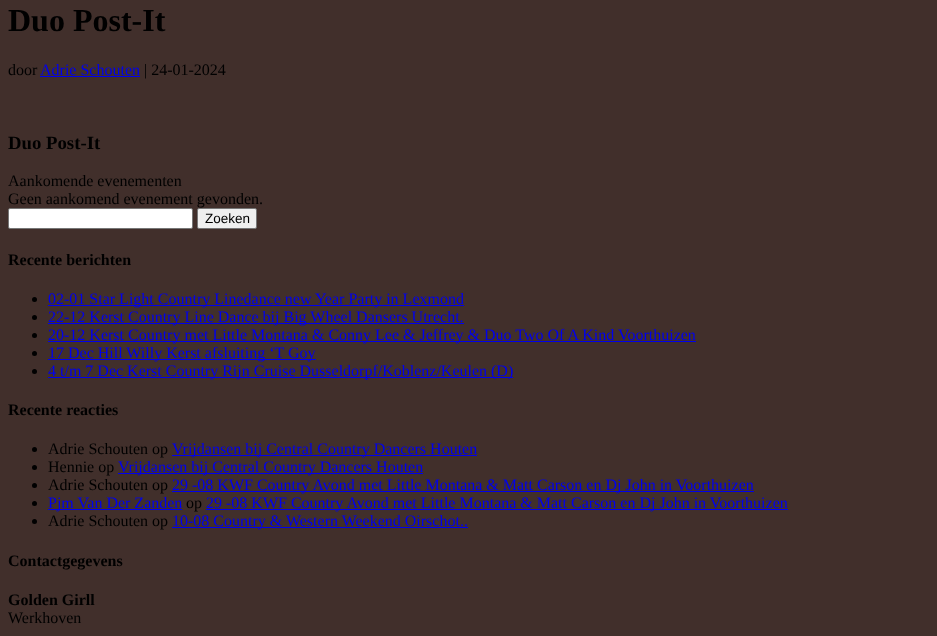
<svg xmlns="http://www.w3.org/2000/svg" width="937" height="636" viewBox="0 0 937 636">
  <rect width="100%" height="100%" fill="rgb(65,47,43)"/>
  <text x="8" y="31" font-family="Liberation Serif" font-size="32" font-weight="bold" fill="rgb(0,0,0)">Duo Post-It</text>
  <text x="8" y="75" font-family="Liberation Serif" font-size="16" fill="rgb(0,0,0)">door</text>
  <text x="40" y="75" font-family="Liberation Serif" font-size="16" fill="rgb(0,0,238)">Adrie Schouten</text>
  <rect x="40" y="76" width="100" height="1" fill="rgb(0,0,238)"/>
  <text x="144" y="75" font-family="Liberation Serif" font-size="16" fill="rgb(0,0,0)">| 24-01-2024</text>
  <text x="8" y="149" font-family="Liberation Serif" font-size="18.75" font-weight="bold" fill="rgb(0,0,0)">Duo Post-It</text>
  <g font-family="Liberation Serif" font-size="16" fill="rgb(0,0,0)">
    <text>
      <tspan x="8" y="186">Aankomende evenementen</tspan>
      <tspan x="8" y="204">Geen aankomend evenement gevonden.</tspan>
    </text>
  </g>
  <rect x="8.5" y="208.5" width="184" height="20" rx="1.5" fill="rgb(255,255,255)" stroke="rgb(118,118,118)"/>
  <rect x="197.5" y="208.5" width="59" height="20" rx="1.5" fill="rgb(239,239,239)" stroke="rgb(118,118,118)"/>
  <text x="205" y="223" font-family="Liberation Sans" font-size="13.5" fill="rgb(0,0,0)">Zoeken</text>
  <text x="8" y="265" font-family="Liberation Serif" font-size="16" font-weight="bold" fill="rgb(0,0,0)">Recente berichten</text>
  <circle cx="34.5" cy="299.5" r="2.5" fill="rgb(0,0,0)"/>
  <rect x="48" y="305" width="416" height="1" fill="rgb(0,0,238)"/>
  <text x="48" y="304" font-family="Liberation Serif" font-size="16" fill="rgb(0,0,238)">02-01 Star Light Country Linedance new Year Party in Lexmond</text>
  <circle cx="34.5" cy="317.5" r="2.5" fill="rgb(0,0,0)"/>
  <rect x="48" y="323" width="416" height="1" fill="rgb(0,0,238)"/>
  <text x="48" y="322" font-family="Liberation Serif" font-size="16" fill="rgb(0,0,238)">22-12 Kerst Country Line Dance bij Big Wheel Dansers Utrecht.</text>
  <circle cx="34.5" cy="335.5" r="2.5" fill="rgb(0,0,0)"/>
  <rect x="48" y="341" width="648" height="1" fill="rgb(0,0,238)"/>
  <text x="48" y="340" font-family="Liberation Serif" font-size="16" fill="rgb(0,0,238)">20-12 Kerst Country met Little Montana &amp; Conny Lee &amp; Jeffrey &amp; Duo Two Of A Kind Voorthuizen</text>
  <circle cx="34.5" cy="353.5" r="2.5" fill="rgb(0,0,0)"/>
  <rect x="48" y="359" width="268" height="1" fill="rgb(0,0,238)"/>
  <text x="48" y="358" font-family="Liberation Serif" font-size="16" fill="rgb(0,0,238)">17 Dec Hill Willy Kerst afsluiting ‘T Goy</text>
  <circle cx="34.5" cy="371.5" r="2.5" fill="rgb(0,0,0)"/>
  <rect x="48" y="377" width="465" height="1" fill="rgb(0,0,238)"/>
  <text x="48" y="376" font-family="Liberation Serif" font-size="16" fill="rgb(0,0,238)">4 t/m 7 Dec Kerst Country Rijn Cruise Dusseldorpf/Koblenz/Keulen (D)</text>
  <text x="8" y="415" font-family="Liberation Serif" font-size="16" font-weight="bold" fill="rgb(0,0,0)">Recente reacties</text>
  <circle cx="34.5" cy="449.5" r="2.5" fill="rgb(0,0,0)"/>
  <text x="48" y="454" font-family="Liberation Serif" font-size="16" fill="rgb(0,0,0)">Adrie Schouten op</text>
  <rect x="172" y="455" width="305" height="1" fill="rgb(0,0,238)"/>
  <text x="172" y="454" font-family="Liberation Serif" font-size="16" fill="rgb(0,0,238)">Vrijdansen bij Central Country Dancers Houten</text>
  <circle cx="34.5" cy="467.5" r="2.5" fill="rgb(0,0,0)"/>
  <text x="48" y="472" font-family="Liberation Serif" font-size="16" fill="rgb(0,0,0)">Hennie op</text>
  <rect x="118" y="473" width="305" height="1" fill="rgb(0,0,238)"/>
  <text x="118" y="472" font-family="Liberation Serif" font-size="16" fill="rgb(0,0,238)">Vrijdansen bij Central Country Dancers Houten</text>
  <circle cx="34.5" cy="485.5" r="2.5" fill="rgb(0,0,0)"/>
  <text x="48" y="490" font-family="Liberation Serif" font-size="16" fill="rgb(0,0,0)">Adrie Schouten op</text>
  <rect x="172" y="491" width="582" height="1" fill="rgb(0,0,238)"/>
  <text x="172" y="490" font-family="Liberation Serif" font-size="16" fill="rgb(0,0,238)">29 -08 KWF Country Avond met Little Montana &amp; Matt Carson en Dj John in Voorthuizen</text>
  <circle cx="34.5" cy="503.5" r="2.5" fill="rgb(0,0,0)"/>
  <rect x="48" y="509" width="134" height="1" fill="rgb(0,0,238)"/>
  <text x="48" y="508" font-family="Liberation Serif" font-size="16" fill="rgb(0,0,238)">Pjm Van Der Zanden</text>
  <text x="186" y="508" font-family="Liberation Serif" font-size="16" fill="rgb(0,0,0)">op</text>
  <rect x="206" y="509" width="582" height="1" fill="rgb(0,0,238)"/>
  <text x="206" y="508" font-family="Liberation Serif" font-size="16" fill="rgb(0,0,238)">29 -08 KWF Country Avond met Little Montana &amp; Matt Carson en Dj John in Voorthuizen</text>
  <circle cx="34.5" cy="521.5" r="2.5" fill="rgb(0,0,0)"/>
  <text x="48" y="526" font-family="Liberation Serif" font-size="16" fill="rgb(0,0,0)">Adrie Schouten op</text>
  <rect x="172" y="527" width="296" height="1" fill="rgb(0,0,238)"/>
  <text x="172" y="526" font-family="Liberation Serif" font-size="16" fill="rgb(0,0,238)">10-08 Country &amp; Western Weekend Oirschot..</text>
  <g font-family="Liberation Serif" font-size="16" font-weight="bold" fill="rgb(0,0,0)">
    <text x="8" y="566">Contactgegevens</text>
    <text x="8" y="605">Golden Girll</text>
  </g>
  <text x="8" y="623" font-family="Liberation Serif" font-size="16" fill="rgb(0,0,0)">Werkhoven</text>
</svg>
